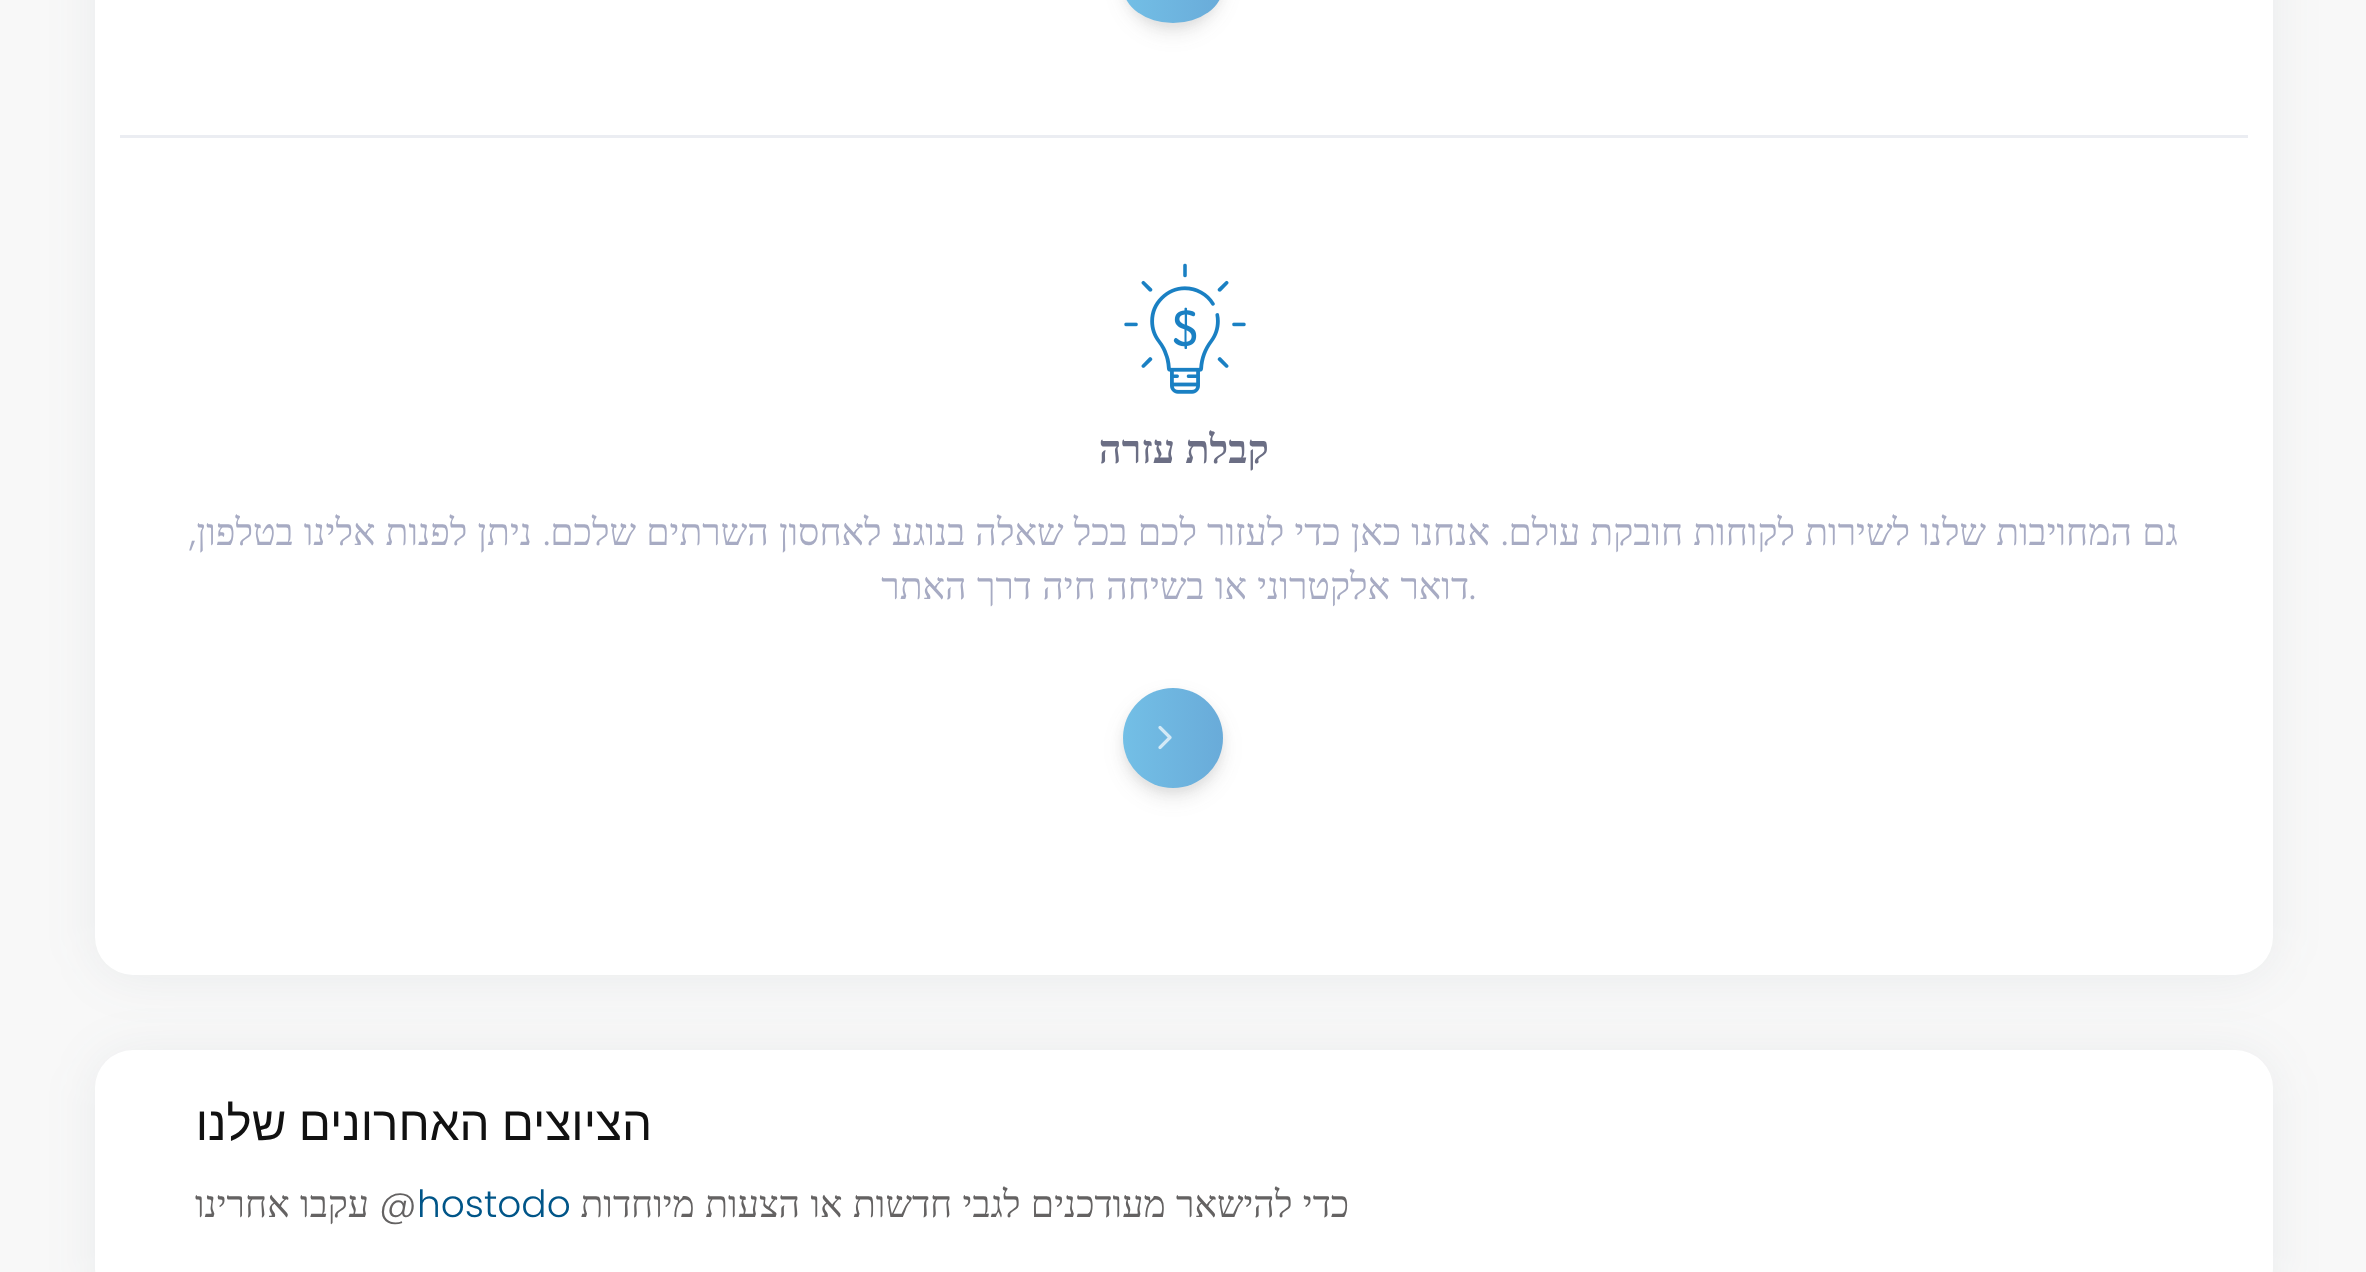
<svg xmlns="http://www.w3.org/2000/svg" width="2366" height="1272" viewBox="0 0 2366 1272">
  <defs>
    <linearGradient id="g1" gradientUnits="userSpaceOnUse" x1="1123" y1="-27" x2="1223" y2="-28"><stop offset="0" stop-color="rgb(115,191,230)"/><stop offset="1" stop-color="rgb(105,171,217)"/></linearGradient>
    <linearGradient id="g2" gradientUnits="userSpaceOnUse" x1="1123" y1="738" x2="1223" y2="738"><stop offset="0" stop-color="rgb(115,191,230)"/><stop offset="1" stop-color="rgb(105,171,217)"/></linearGradient>
  </defs>
  <rect width="100%" height="100%" fill="rgb(248,248,248)"/>
  <rect x="95" y="-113" width="2178" height="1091" rx="38" fill="rgba(69,90,100,0.08)" filter="blur(25px)"/>
  <rect x="95" y="-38" width="2178" height="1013" rx="38" fill="rgb(255,255,255)"/>
  <rect x="120" y="135" width="2128" height="3" fill="rgb(235,237,242)"/>
  <rect x="1123" y="-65" width="100" height="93" rx="50" fill="rgba(77,77,77,0.08)" filter="blur(5px)"/>
  <rect x="1123" y="-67" width="100" height="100" rx="50" fill="rgba(77,77,77,0.12)" filter="blur(10px)"/>
  <rect x="1123" y="-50" width="100" height="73" rx="50" fill="url(#g1)"/>
  <image x="1124" y="263" width="122" height="131" href="pic1.png"/>
  <text x="1269" y="463" font-family="Liberation Serif" font-size="40" font-weight="bold" direction="rtl" fill="rgb(107,110,132)">קבלת עזרה</text>
  <text x="2178" y="545" word-spacing="0.75" font-family="Liberation Serif" font-size="37.5" direction="rtl" fill="rgb(167,171,195)">גם המחויבות שלנו לשירות לקוחות חובקת עולם</text>
  <text x="1508" y="545" font-family="Poppins" font-size="37.5" font-weight="300" direction="rtl" fill="rgb(167,171,195)">.</text>
  <text x="1490" y="545" word-spacing="0.75" font-family="Liberation Serif" font-size="37.5" direction="rtl" fill="rgb(167,171,195)">אנחנו כאן כדי לעזור לכם בכל שאלה בנוגע לאחסון השרתים שלכם</text>
  <text x="550" y="545" font-family="Poppins" font-size="37.5" font-weight="300" direction="rtl" fill="rgb(167,171,195)">.</text>
  <text x="532" y="545" word-spacing="0.75" font-family="Liberation Serif" font-size="37.5" direction="rtl" fill="rgb(167,171,195)">ניתן לפנות אלינו בטלפון</text>
  <text x="196" y="545" font-family="Poppins" font-size="37.5" font-weight="300" direction="rtl" fill="rgb(167,171,195)">,</text>
  <text x="1469" y="599" font-family="Poppins" font-size="37.5" font-weight="300" fill="rgb(167,171,195)">.</text>
  <text x="1469" y="599" word-spacing="1" font-family="Liberation Serif" font-size="37.5" direction="rtl" fill="rgb(167,171,195)">דואר אלקטרוני או בשיחה חיה דרך האתר</text>
  <rect x="1123" y="693" width="100" height="100" rx="50" fill="rgba(77,77,77,0.08)" filter="blur(5px)"/>
  <rect x="1123" y="698" width="100" height="100" rx="50" fill="rgba(77,77,77,0.12)" filter="blur(10px)"/>
  <circle cx="1173" cy="738" r="50" fill="url(#g2)"/>
  <image x="1158" y="725" width="14" height="25" href="pic2.png"/>
  <rect x="95" y="1053" width="2178" height="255" rx="38" fill="rgba(69,90,100,0.08)" filter="blur(25px)"/>
  <rect x="95" y="1050" width="2178" height="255" rx="38" fill="rgb(255,255,255)"/>
  <text x="652" y="1140" word-spacing="-1" font-family="Liberation Sans" font-size="47.5" direction="rtl" fill="rgb(17,17,17)">הציוצים האחרונים שלנו</text>
  <text x="1349" y="1217" word-spacing="1" font-family="Liberation Serif" font-size="37.5" direction="rtl" fill="rgb(100,98,98)">כדי להישאר מעודכנים לגבי חדשות או הצעות מיוחדות</text>
  <text x="417" y="1217" font-family="Poppins" font-size="37.5" font-weight="300" fill="rgb(0,85,136)">hostodo</text>
  <text x="379" y="1217" font-family="Poppins" font-size="37.5" font-weight="300" fill="rgb(100,98,98)">@</text>
  <text x="369" y="1217" word-spacing="1" font-family="Liberation Serif" font-size="37.5" direction="rtl" fill="rgb(100,98,98)">עקבו אחרינו</text>
</svg>
